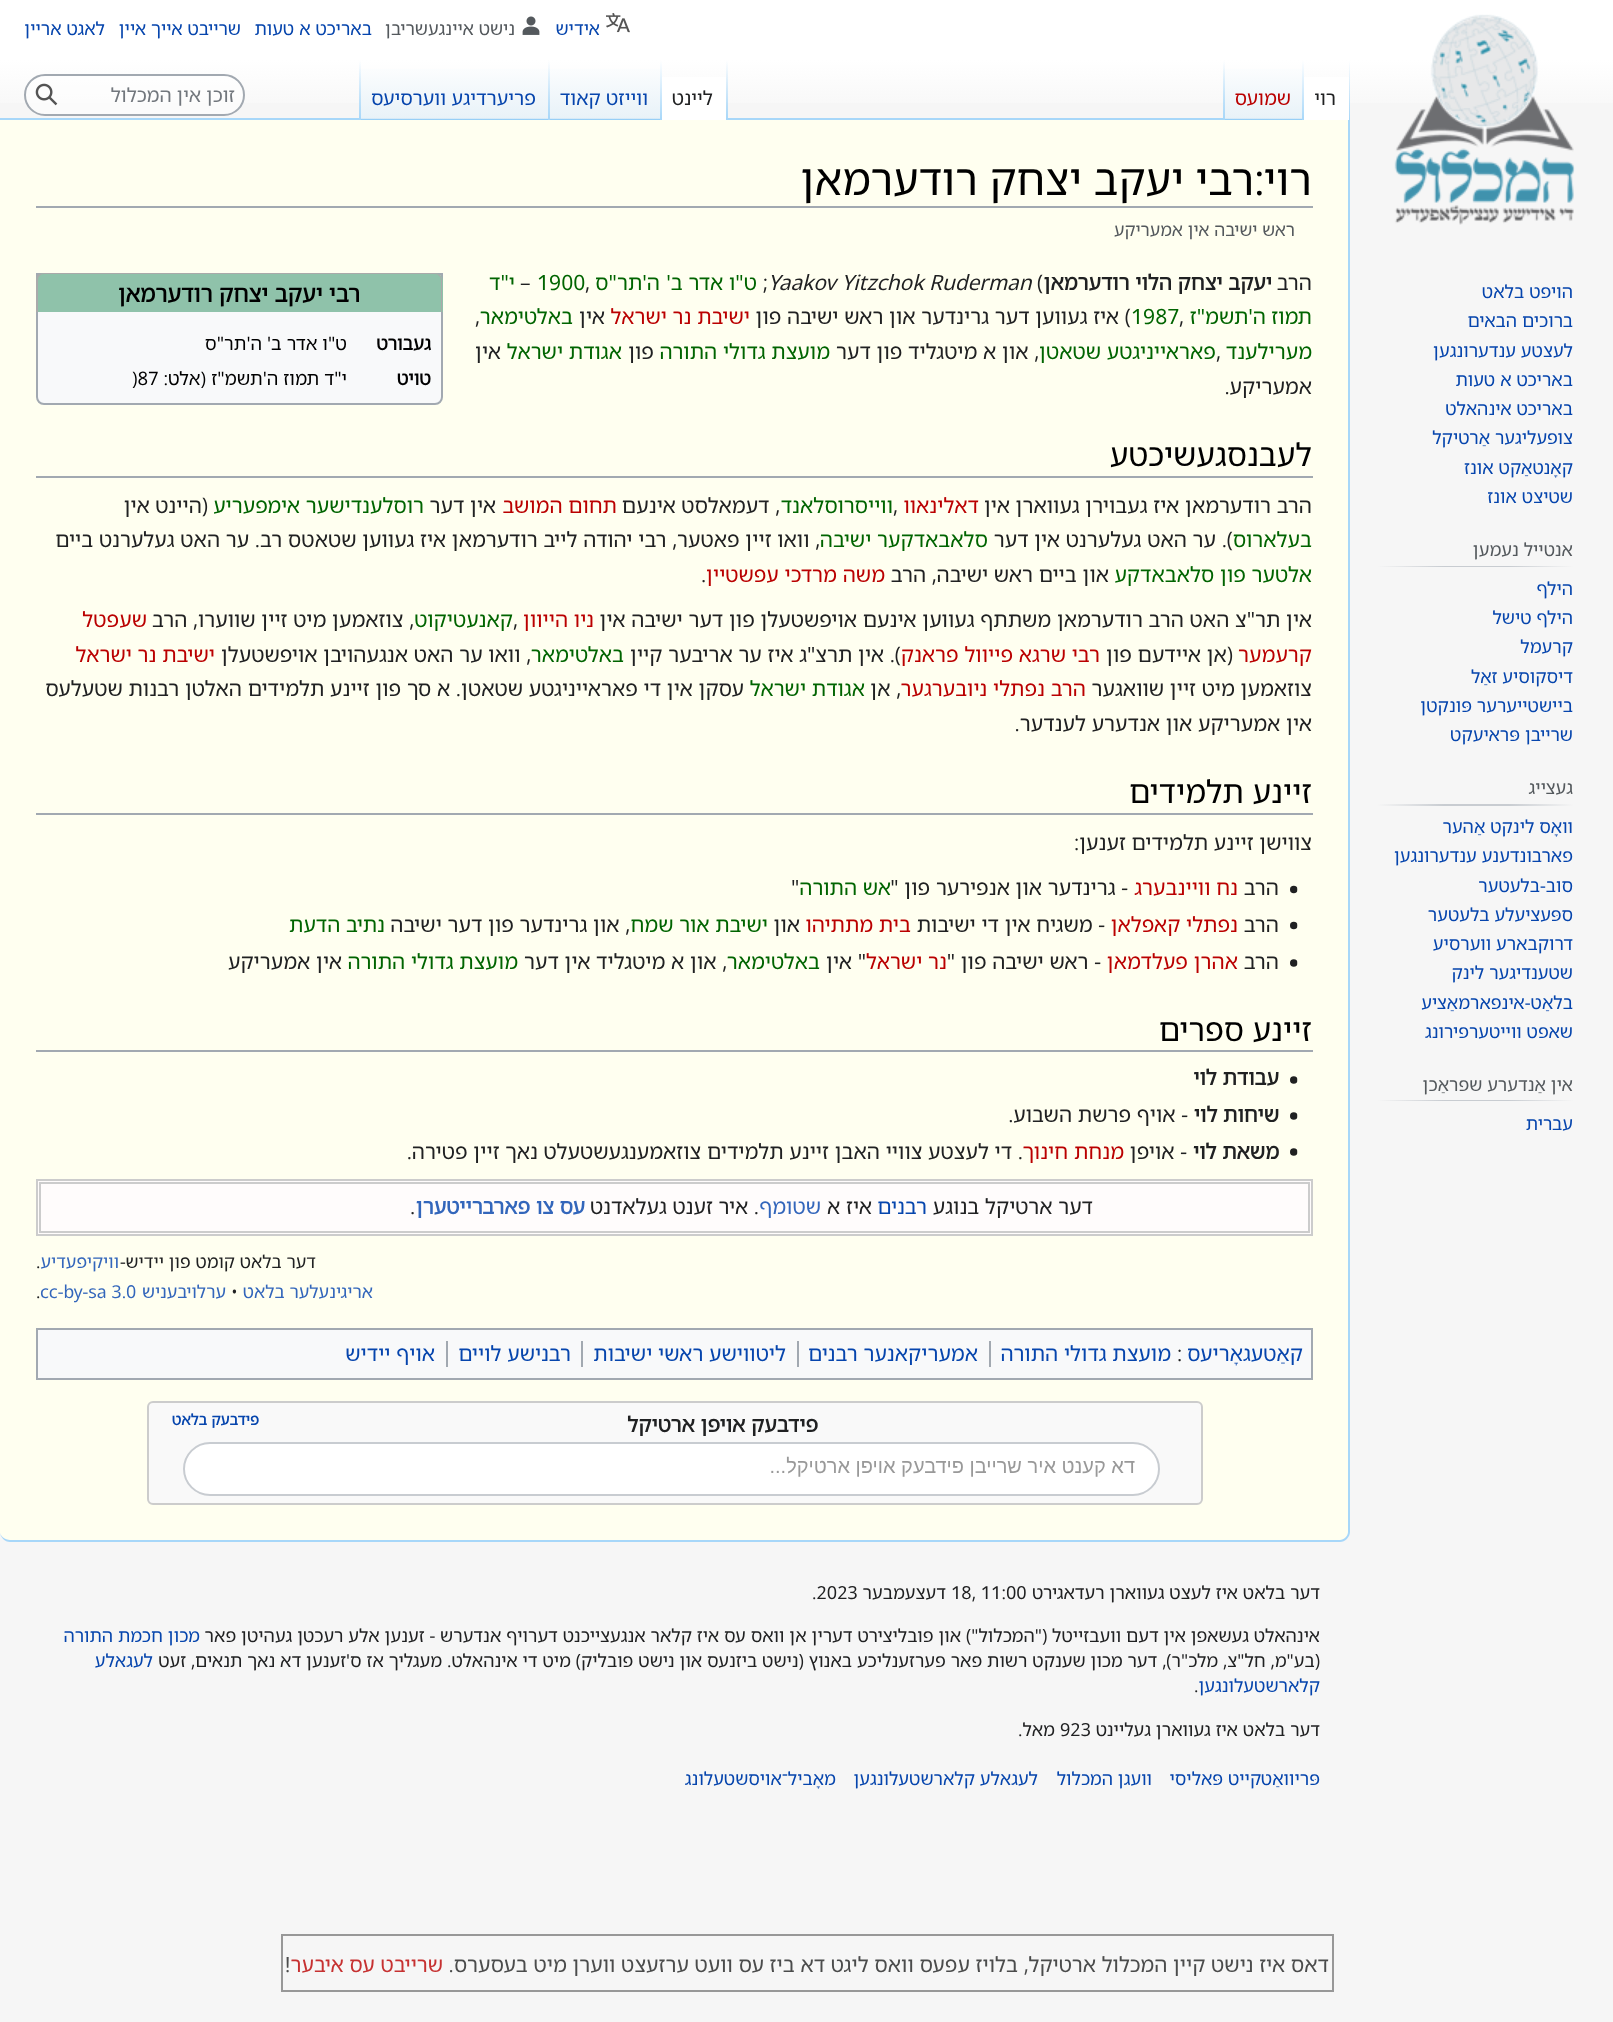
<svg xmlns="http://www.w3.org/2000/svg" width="1613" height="2022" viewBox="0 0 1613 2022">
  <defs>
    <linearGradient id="g1" gradientUnits="userSpaceOnUse" x1="807" y1="0" x2="807" y2="120"><stop offset="0.5" stop-color="rgb(255,255,255)"/><stop offset="1" stop-color="rgb(246,246,246)"/></linearGradient>
    <linearGradient id="g2" gradientUnits="userSpaceOnUse" x1="1349" y1="60" x2="1349" y2="120"><stop offset="0" stop-color="rgb(167,215,249)" stop-opacity="0"/><stop offset="1" stop-color="rgb(167,215,249)"/></linearGradient>
    <linearGradient id="g3" gradientUnits="userSpaceOnUse" x1="1303" y1="60" x2="1303" y2="120"><stop offset="0" stop-color="rgb(255,255,255)"/><stop offset="1" stop-color="rgb(167,215,249)"/></linearGradient>
    <linearGradient id="g4" gradientUnits="userSpaceOnUse" x1="1262" y1="120" x2="1262" y2="60"><stop offset="0" stop-color="rgb(119,193,246)"/><stop offset="0.03" stop-color="rgb(232,242,248)"/><stop offset="1" stop-color="rgb(255,255,255)"/></linearGradient>
    <linearGradient id="g5" gradientUnits="userSpaceOnUse" x1="1223" y1="60" x2="1223" y2="120"><stop offset="0" stop-color="rgb(167,215,249)" stop-opacity="0"/><stop offset="1" stop-color="rgb(167,215,249)"/></linearGradient>
    <linearGradient id="g6" gradientUnits="userSpaceOnUse" x1="727" y1="60" x2="727" y2="120"><stop offset="0" stop-color="rgb(167,215,249)" stop-opacity="0"/><stop offset="1" stop-color="rgb(167,215,249)"/></linearGradient>
    <linearGradient id="g7" gradientUnits="userSpaceOnUse" x1="661" y1="60" x2="661" y2="120"><stop offset="0" stop-color="rgb(255,255,255)"/><stop offset="1" stop-color="rgb(167,215,249)"/></linearGradient>
    <linearGradient id="g8" gradientUnits="userSpaceOnUse" x1="604" y1="120" x2="604" y2="60"><stop offset="0" stop-color="rgb(119,193,246)"/><stop offset="0.03" stop-color="rgb(232,242,248)"/><stop offset="1" stop-color="rgb(255,255,255)"/></linearGradient>
    <linearGradient id="g9" gradientUnits="userSpaceOnUse" x1="548" y1="60" x2="548" y2="120"><stop offset="0" stop-color="rgb(167,215,249)" stop-opacity="0"/><stop offset="1" stop-color="rgb(167,215,249)"/></linearGradient>
    <linearGradient id="g10" gradientUnits="userSpaceOnUse" x1="453" y1="120" x2="453" y2="60"><stop offset="0" stop-color="rgb(119,193,246)"/><stop offset="0.03" stop-color="rgb(232,242,248)"/><stop offset="1" stop-color="rgb(255,255,255)"/></linearGradient>
    <linearGradient id="g11" gradientUnits="userSpaceOnUse" x1="359" y1="60" x2="359" y2="120"><stop offset="0" stop-color="rgb(167,215,249)" stop-opacity="0"/><stop offset="1" stop-color="rgb(167,215,249)"/></linearGradient>
    <linearGradient id="g12" gradientUnits="userSpaceOnUse" x1="1574" y1="566" x2="1377" y2="566"><stop offset="0" stop-color="rgb(246,246,246)"/><stop offset="0.33" stop-color="rgb(200,204,209)"/><stop offset="0.66" stop-color="rgb(200,204,209)"/><stop offset="1" stop-color="rgb(246,246,246)"/></linearGradient>
    <linearGradient id="g13" gradientUnits="userSpaceOnUse" x1="1574" y1="805" x2="1377" y2="805"><stop offset="0" stop-color="rgb(246,246,246)"/><stop offset="0.33" stop-color="rgb(200,204,209)"/><stop offset="0.66" stop-color="rgb(200,204,209)"/><stop offset="1" stop-color="rgb(246,246,246)"/></linearGradient>
    <linearGradient id="g14" gradientUnits="userSpaceOnUse" x1="1574" y1="1100" x2="1377" y2="1100"><stop offset="0" stop-color="rgb(246,246,246)"/><stop offset="0.33" stop-color="rgb(200,204,209)"/><stop offset="0.66" stop-color="rgb(200,204,209)"/><stop offset="1" stop-color="rgb(246,246,246)"/></linearGradient>
  </defs>
  <rect width="100%" height="100%" fill="rgb(246,246,246)"/>
  <rect x="0" y="0" width="1613" height="103" fill="url(#g1)"/>
  <image x="606" y="13" width="24" height="20" href="pic1.png"/>
  <text x="600" y="35" font-family="Noto Sans Hebrew" font-size="18" font-weight="100" direction="rtl" fill="rgb(6,69,173)">אידיש</text>
  <image x="522" y="16" width="18" height="19" href="pic2.png"/>
  <text x="515" y="35" font-family="Noto Sans Hebrew" font-size="18" font-weight="100" direction="rtl" fill="rgb(84,89,93)">נישט איינגעשריבן</text>
  <g font-family="Noto Sans Hebrew" font-size="18" font-weight="100" direction="rtl" fill="rgb(6,69,173)">
    <text x="372" y="35">באריכט א טעות</text>
    <text x="241" y="35">שרייבט אייך איין</text>
    <text x="105" y="35">לאגט אריין</text>
  </g>
  <path d="M0 120H1348V1532C1348 1536 1344 1540 1340 1540H10C5 1540 0 1536 0 1532Z" fill="rgb(255,255,240)"/>
  <path d="M0 118H1350V1532C1350 1537 1345 1542 1340 1542H10C5 1542 0 1537 0 1532ZM0 120H1348V1532C1348 1536 1344 1540 1340 1540H10C5 1540 0 1536 0 1532Z" fill="rgb(167,215,249)" fill-rule="evenodd"/>
  <rect x="1349" y="60" width="1" height="60" fill="url(#g2)"/>
  <rect x="1304" y="77" width="45" height="43" fill="rgb(255,255,255)"/>
  <rect x="1302" y="60" width="2" height="60" fill="url(#g3)"/>
  <text x="1336" y="105" font-family="Noto Sans Hebrew" font-size="19.5" font-weight="100" direction="rtl" fill="rgb(32,33,34)">רוי</text>
  <rect x="1223" y="69" width="79" height="51" fill="url(#g4)"/>
  <rect x="1223" y="60" width="2" height="60" fill="url(#g5)"/>
  <text x="1291" y="105" font-family="Noto Sans Hebrew" font-size="19.5" font-weight="100" direction="rtl" fill="rgb(186,0,0)">שמועס</text>
  <rect x="726" y="60" width="2" height="60" fill="url(#g6)"/>
  <rect x="662" y="77" width="64" height="43" fill="rgb(255,255,255)"/>
  <rect x="660" y="60" width="2" height="60" fill="url(#g7)"/>
  <text x="713" y="105" font-family="Noto Sans Hebrew" font-size="19.5" font-weight="100" direction="rtl" fill="rgb(32,33,34)">ליינט</text>
  <rect x="548" y="69" width="112" height="51" fill="url(#g8)"/>
  <rect x="548" y="60" width="2" height="60" fill="url(#g9)"/>
  <text x="648" y="105" font-family="Noto Sans Hebrew" font-size="19.5" font-weight="100" direction="rtl" fill="rgb(6,69,173)">ווייזט קאוד</text>
  <rect x="359" y="69" width="189" height="51" fill="url(#g10)"/>
  <rect x="359" y="60" width="2" height="60" fill="url(#g11)"/>
  <text x="536" y="105" font-family="Noto Sans Hebrew" font-size="19.5" font-weight="100" direction="rtl" fill="rgb(6,69,173)">פריערדיגע ווערסיעס</text>
  <rect x="25" y="75" width="219" height="40" rx="20" fill="rgba(255,255,255,0.5)" stroke="rgb(162,169,177)" stroke-width="2"/>
  <text x="235" y="102" font-family="Noto Sans Hebrew" font-size="19.5" font-weight="100" direction="rtl" fill="rgb(114,119,125)">זוכן אין המכלול</text>
  <image x="35" y="83" width="23" height="23" href="pic3.png"/>
  <image x="1394" y="14" width="181" height="211" href="pic4.png"/>
  <g font-family="Noto Sans Hebrew" font-size="18" font-weight="100" direction="rtl" fill="rgb(6,69,173)">
    <text>
      <tspan x="1573" y="298">הויפט בלאט</tspan>
      <tspan x="1573" y="327">ברוכים הבאים</tspan>
      <tspan x="1573" y="357">לעצטע ענדערונגען</tspan>
      <tspan x="1573" y="386">באריכט א טעות</tspan>
      <tspan x="1573" y="415">באריכט אינהאלט</tspan>
      <tspan x="1573" y="444">צופעליגער אַרטיקל</tspan>
      <tspan x="1573" y="474">קאָנטאַקט אונז</tspan>
      <tspan x="1573" y="503">שטיצט אונז</tspan>
    </text>
  </g>
  <rect x="1377" y="566" width="197" height="1" fill="url(#g12)"/>
  <text x="1573" y="556" font-family="Noto Sans Hebrew" font-size="18" font-weight="100" direction="rtl" fill="rgb(84,89,93)">אנטייל נעמען</text>
  <g font-family="Noto Sans Hebrew" font-size="18" font-weight="100" direction="rtl" fill="rgb(6,69,173)">
    <text>
      <tspan x="1573" y="595">הילף</tspan>
      <tspan x="1573" y="624">הילף טישל</tspan>
      <tspan x="1573" y="653">קרעמל</tspan>
      <tspan x="1573" y="683">דיסקוסיע זאַל</tspan>
      <tspan x="1573" y="712">ביישטייערער פּונקטן</tspan>
      <tspan x="1573" y="741">שרייבן פּראיעקט</tspan>
    </text>
  </g>
  <rect x="1377" y="804" width="197" height="2" fill="url(#g13)"/>
  <text x="1573" y="794" font-family="Noto Sans Hebrew" font-size="18" font-weight="100" direction="rtl" fill="rgb(84,89,93)">געצייג</text>
  <g font-family="Noto Sans Hebrew" font-size="18" font-weight="100" direction="rtl" fill="rgb(6,69,173)">
    <text>
      <tspan x="1573" y="833">וואָס לינקט אַהער</tspan>
      <tspan x="1573" y="862">פארבונדענע ענדערונגען</tspan>
      <tspan x="1573" y="892">סוב-בלעטער</tspan>
      <tspan x="1573" y="921">ספּעציעלע בלעטער</tspan>
      <tspan x="1573" y="950">דרוקבארע ווערסיע</tspan>
      <tspan x="1573" y="979">שטענדיגער לינק</tspan>
      <tspan x="1573" y="1009">בלאַט-אינפארמאַציע</tspan>
      <tspan x="1573" y="1038">שאפט ווייטערפירונג</tspan>
    </text>
  </g>
  <rect x="1377" y="1100" width="197" height="1" fill="url(#g14)"/>
  <text x="1573" y="1091" font-family="Noto Sans Hebrew" font-size="18" font-weight="100" direction="rtl" fill="rgb(84,89,93)">אין אַנדערע שפראַכן</text>
  <text x="1573" y="1130" font-family="Noto Sans Hebrew" font-size="18" font-weight="100" direction="rtl" fill="rgb(6,69,173)">עברית</text>
  <rect x="36" y="206" width="1277" height="2" fill="rgb(162,169,177)"/>
  <text x="1312" y="195" font-family="Noto Sans Hebrew" font-size="43.25" font-weight="100" direction="rtl" fill="rgb(0,0,0)">רוי</text>
  <text x="1254" y="195" font-family="Noto Sans Hebrew" font-size="43.25" font-weight="100" fill="rgb(0,0,0)">:</text>
  <text x="1254" y="195" font-family="Noto Sans Hebrew" font-size="43.25" font-weight="100" direction="rtl" fill="rgb(0,0,0)">רבי יעקב יצחק רודערמאן</text>
  <text x="1295" y="236" font-family="Noto Sans Hebrew" font-size="17.6" font-weight="100" direction="rtl" fill="rgb(84,89,93)">ראש ישיבה אין אמעריקע</text>
  <text x="1312" y="290" font-family="Noto Sans Hebrew" font-size="21" font-weight="100" direction="rtl" fill="rgb(32,33,34)">הרב</text>
  <text x="1272" y="290" font-family="Noto Sans Hebrew" font-size="21" font-weight="bold" direction="rtl" fill="rgb(32,33,34)">יעקב יצחק הלוי רודערמאן</text>
  <text x="1037" y="290" font-family="Noto Sans Hebrew" font-size="21" font-weight="100" fill="rgb(32,33,34)">(</text>
  <text x="768" y="290" font-family="Noto Sans Hebrew" font-size="21" font-weight="100" font-style="italic" fill="rgb(32,33,34)">Yaakov Yitzchok Ruderman</text>
  <text x="768" y="290" font-family="Noto Sans Hebrew" font-size="21" font-weight="100" direction="rtl" fill="rgb(32,33,34)">;</text>
  <g font-family="Noto Sans Hebrew" font-size="21" font-weight="100" direction="rtl" fill="rgb(0,100,0)">
    <text x="757" y="290">ט"ו אדר ב'</text>
    <text x="660" y="290">ה'תר"ס</text>
  </g>
  <text x="537" y="290" font-family="Noto Sans Hebrew" font-size="21" font-weight="100" fill="rgb(0,100,0)">1900</text>
  <text x="520" y="290" font-family="Noto Sans Hebrew" font-size="21" font-weight="100" fill="rgb(32,33,34)">–</text>
  <text x="515" y="290" font-family="Noto Sans Hebrew" font-size="21" font-weight="100" direction="rtl" fill="rgb(0,100,0)">י"ד</text>
  <text x="585" y="290" font-family="Noto Sans Hebrew" font-size="21" font-weight="100" fill="rgb(32,33,34)">,</text>
  <g font-family="Noto Sans Hebrew" font-size="21" font-weight="100" direction="rtl" fill="rgb(0,100,0)">
    <text x="1312" y="324">תמוז</text>
    <text x="1266" y="324">ה'תשמ"ז</text>
  </g>
  <text x="1179" y="324" font-family="Noto Sans Hebrew" font-size="21" font-weight="100" fill="rgb(32,33,34)">,</text>
  <text x="1131" y="324" font-family="Noto Sans Hebrew" font-size="21" font-weight="100" fill="rgb(0,100,0)">1987</text>
  <text x="1131" y="324" font-family="Noto Sans Hebrew" font-size="21" font-weight="100" direction="rtl" fill="rgb(32,33,34)">) איז געווען דער גרינדער און ראש ישיבה פון</text>
  <text x="750" y="324" font-family="Noto Sans Hebrew" font-size="21" font-weight="100" direction="rtl" fill="rgb(186,0,0)">ישיבת נר ישראל</text>
  <text x="605" y="324" font-family="Noto Sans Hebrew" font-size="21" font-weight="100" direction="rtl" fill="rgb(32,33,34)">אין</text>
  <text x="573" y="324" font-family="Noto Sans Hebrew" font-size="21" font-weight="100" direction="rtl" fill="rgb(0,100,0)">באלטימאר</text>
  <text x="475" y="324" font-family="Noto Sans Hebrew" font-size="21" font-weight="100" fill="rgb(32,33,34)">,</text>
  <text x="1312" y="359" font-family="Noto Sans Hebrew" font-size="21" font-weight="100" direction="rtl" fill="rgb(0,100,0)">מערילענד</text>
  <text x="1216" y="359" font-family="Noto Sans Hebrew" font-size="21" font-weight="100" fill="rgb(32,33,34)">,</text>
  <text x="1216" y="359" font-family="Noto Sans Hebrew" font-size="21" font-weight="100" direction="rtl" fill="rgb(0,100,0)">פאראייניגטע שטאטן</text>
  <text x="1039" y="359" font-family="Noto Sans Hebrew" font-size="21" font-weight="100" direction="rtl" fill="rgb(32,33,34)">, און א מיטגליד פון דער</text>
  <text x="830" y="359" font-family="Noto Sans Hebrew" font-size="21" font-weight="100" direction="rtl" fill="rgb(0,100,0)">מועצת גדולי התורה</text>
  <text x="654" y="359" font-family="Noto Sans Hebrew" font-size="21" font-weight="100" direction="rtl" fill="rgb(32,33,34)">פון</text>
  <text x="622" y="359" font-family="Noto Sans Hebrew" font-size="21" font-weight="100" direction="rtl" fill="rgb(0,100,0)">אגודת ישראל</text>
  <g font-family="Noto Sans Hebrew" font-size="21" font-weight="100" direction="rtl" fill="rgb(32,33,34)">
    <text x="501" y="359">אין</text>
    <text x="1312" y="394">אמעריקע.</text>
  </g>
  <path d="M37 274H442V397C442 401 439 404 435 404H44C40 404 37 401 37 397Z" fill="rgb(248,249,250)" stroke="rgb(162,169,177)" stroke-width="2"/>
  <path d="M44 273H435C439.5 273 443 276.5 443 281V312H36V281C36 276.5 39.5 273 44 273Z" fill="rgb(143,194,170)"/>
  <path d="M44 273H435C439 273 442 276 442 280V312H36V280C36 276 39 273 44 273ZM44 274H435C438 274 441 277 441 280V312H38V280C38 277 40 274 44 274Z" fill="rgb(170,170,170)" fill-rule="evenodd"/>
  <text x="360" y="302" font-family="Noto Sans Hebrew" font-size="23.1" font-weight="bold" direction="rtl" fill="rgb(0,0,0)">רבי יעקב יצחק רודערמאן</text>
  <text x="431" y="350" font-family="Noto Sans Hebrew" font-size="18.5" font-weight="bold" direction="rtl" fill="rgb(0,0,0)">געבורט</text>
  <text x="347" y="350" font-family="Noto Sans Hebrew" font-size="18.5" font-weight="100" direction="rtl" fill="rgb(0,0,0)">ט"ו אדר ב' ה'תר"ס</text>
  <text x="431" y="385" font-family="Noto Sans Hebrew" font-size="18.5" font-weight="bold" direction="rtl" fill="rgb(0,0,0)">טויט</text>
  <g font-family="Noto Sans Hebrew" font-size="18.5" font-weight="100" direction="rtl" fill="rgb(0,0,0)">
    <text x="347" y="385">י"ד תמוז ה'תשמ"ז</text>
    <text x="206" y="385">(אלט:</text>
  </g>
  <text x="132" y="385" font-family="Noto Sans Hebrew" font-size="18.5" font-weight="100" fill="rgb(0,0,0)">)87</text>
  <rect x="36" y="476" width="1277" height="2" fill="rgb(162,169,177)"/>
  <text x="1312" y="466" font-family="Noto Sans Hebrew" font-size="31.5" font-weight="100" direction="rtl" fill="rgb(0,0,0)">לעבנסגעשיכטע</text>
  <text x="1312" y="513" font-family="Noto Sans Hebrew" font-size="21" font-weight="100" direction="rtl" fill="rgb(32,33,34)">הרב רודערמאן איז געבוירן געווארן אין</text>
  <text x="979" y="513" font-family="Noto Sans Hebrew" font-size="21" font-weight="100" direction="rtl" fill="rgb(186,0,0)">דאלינאוו</text>
  <text x="893" y="513" font-family="Noto Sans Hebrew" font-size="21" font-weight="100" fill="rgb(32,33,34)">,</text>
  <text x="893" y="513" font-family="Noto Sans Hebrew" font-size="21" font-weight="100" direction="rtl" fill="rgb(0,100,0)">ווייסרוסלאנד</text>
  <text x="780" y="513" font-family="Noto Sans Hebrew" font-size="21" font-weight="100" direction="rtl" fill="rgb(32,33,34)">, דעמאלסט אינעם</text>
  <text x="617" y="513" font-family="Noto Sans Hebrew" font-size="21" font-weight="100" direction="rtl" fill="rgb(186,0,0)">תחום המושב</text>
  <text x="496" y="513" font-family="Noto Sans Hebrew" font-size="21" font-weight="100" direction="rtl" fill="rgb(32,33,34)">אין דער</text>
  <text x="424" y="513" font-family="Noto Sans Hebrew" font-size="21" font-weight="100" direction="rtl" fill="rgb(0,100,0)">רוסלענדישער אימפעריע</text>
  <text x="208" y="513" font-family="Noto Sans Hebrew" font-size="21" font-weight="100" direction="rtl" fill="rgb(32,33,34)">(היינט אין</text>
  <text x="1312" y="547" font-family="Noto Sans Hebrew" font-size="21" font-weight="100" direction="rtl" fill="rgb(0,100,0)">בעלארוס</text>
  <text x="1233" y="547" font-family="Noto Sans Hebrew" font-size="21" font-weight="100" direction="rtl" fill="rgb(32,33,34)">). ער האט געלערנט אין דער</text>
  <text x="988" y="547" font-family="Noto Sans Hebrew" font-size="21" font-weight="100" direction="rtl" fill="rgb(0,100,0)">סלאבאדקער ישיבה</text>
  <text x="820" y="547" font-family="Noto Sans Hebrew" font-size="21" font-weight="100" direction="rtl" fill="rgb(32,33,34)">, וואו זיין פאטער, רבי יהודה לייב רודערמאן איז געווען שטאטס רב. ער האט געלערנט ביים</text>
  <text x="1312" y="582" font-family="Noto Sans Hebrew" font-size="21" font-weight="100" direction="rtl" fill="rgb(0,100,0)">אלטער פון סלאבאדקע</text>
  <text x="1109" y="582" font-family="Noto Sans Hebrew" font-size="21" font-weight="100" direction="rtl" fill="rgb(32,33,34)">און ביים ראש ישיבה, הרב</text>
  <text x="885" y="582" font-family="Noto Sans Hebrew" font-size="21" font-weight="100" direction="rtl" fill="rgb(186,0,0)">משה מרדכי עפשטיין</text>
  <text x="701" y="582" font-family="Noto Sans Hebrew" font-size="21" font-weight="100" fill="rgb(32,33,34)">.</text>
  <text x="1312" y="627" font-family="Noto Sans Hebrew" font-size="21" font-weight="100" direction="rtl" fill="rgb(32,33,34)">אין תר"צ האט הרב רודערמאן משתתף געווען אינעם אויפשטעלן פון דער ישיבה אין</text>
  <text x="594" y="627" font-family="Noto Sans Hebrew" font-size="21" font-weight="100" direction="rtl" fill="rgb(186,0,0)">ניו הייוון</text>
  <text x="513" y="627" font-family="Noto Sans Hebrew" font-size="21" font-weight="100" fill="rgb(32,33,34)">,</text>
  <text x="513" y="627" font-family="Noto Sans Hebrew" font-size="21" font-weight="100" direction="rtl" fill="rgb(0,100,0)">קאנעטיקוט</text>
  <text x="414" y="627" font-family="Noto Sans Hebrew" font-size="21" font-weight="100" direction="rtl" fill="rgb(32,33,34)">, צוזאמען מיט זיין שווערו, הרב</text>
  <g font-family="Noto Sans Hebrew" font-size="21" font-weight="100" direction="rtl" fill="rgb(186,0,0)">
    <text x="147" y="627">שעפטל</text>
    <text x="1312" y="662">קרעמער</text>
  </g>
  <text x="1233" y="662" font-family="Noto Sans Hebrew" font-size="21" font-weight="100" direction="rtl" fill="rgb(32,33,34)">(אן איידעם פון</text>
  <text x="1100" y="662" font-family="Noto Sans Hebrew" font-size="21" font-weight="100" direction="rtl" fill="rgb(186,0,0)">רבי שרגא פייוול פראנק</text>
  <text x="901" y="662" font-family="Noto Sans Hebrew" font-size="21" font-weight="100" direction="rtl" fill="rgb(32,33,34)">). אין תרצ"ג איז ער אריבער קיין</text>
  <text x="624" y="662" font-family="Noto Sans Hebrew" font-size="21" font-weight="100" direction="rtl" fill="rgb(0,100,0)">באלטימאר</text>
  <text x="531" y="662" font-family="Noto Sans Hebrew" font-size="21" font-weight="100" direction="rtl" fill="rgb(32,33,34)">, וואו ער האט אנגעהויבן אויפשטעלן</text>
  <text x="215" y="662" font-family="Noto Sans Hebrew" font-size="21" font-weight="100" direction="rtl" fill="rgb(186,0,0)">ישיבת נר ישראל</text>
  <text x="1312" y="696" font-family="Noto Sans Hebrew" font-size="21" font-weight="100" direction="rtl" fill="rgb(32,33,34)">צוזאמען מיט זיין שוואגער</text>
  <text x="1086" y="696" font-family="Noto Sans Hebrew" font-size="21" font-weight="100" direction="rtl" fill="rgb(186,0,0)">הרב נפתלי ניובערגער</text>
  <text x="901" y="696" font-family="Noto Sans Hebrew" font-size="21" font-weight="100" direction="rtl" fill="rgb(32,33,34)">, אן</text>
  <text x="865" y="696" font-family="Noto Sans Hebrew" font-size="21" font-weight="100" direction="rtl" fill="rgb(0,100,0)">אגודת ישראל</text>
  <g font-family="Noto Sans Hebrew" font-size="21" font-weight="100" direction="rtl" fill="rgb(32,33,34)">
    <text x="744" y="696">עסקן אין די פאראייניגטע שטאטן. א סך פון זיינע תלמידים האלטן רבנות שטעלעס</text>
    <text x="1312" y="731">אין אמעריקע און אנדערע לענדער.</text>
  </g>
  <rect x="36" y="813" width="1277" height="2" fill="rgb(162,169,177)"/>
  <text x="1312" y="803" font-family="Noto Sans Hebrew" font-size="31.5" font-weight="100" direction="rtl" fill="rgb(0,0,0)">זיינע תלמידים</text>
  <text x="1312" y="850" font-family="Noto Sans Hebrew" font-size="21" font-weight="100" direction="rtl" fill="rgb(32,33,34)">צווישן זיינע תלמידים זענען:</text>
  <image x="1290" y="885" width="8" height="9" href="pic5.png"/>
  <text x="1279" y="895" font-family="Noto Sans Hebrew" font-size="21" font-weight="100" direction="rtl" fill="rgb(32,33,34)">הרב</text>
  <text x="1238" y="895" font-family="Noto Sans Hebrew" font-size="21" font-weight="100" direction="rtl" fill="rgb(186,0,0)">נח וויינבערג</text>
  <text x="1128" y="895" font-family="Noto Sans Hebrew" font-size="21" font-weight="100" direction="rtl" fill="rgb(32,33,34)">- גרינדער און אנפירער פון "</text>
  <text x="891" y="895" font-family="Noto Sans Hebrew" font-size="21" font-weight="100" direction="rtl" fill="rgb(0,100,0)">אש התורה</text>
  <text x="791" y="895" font-family="Noto Sans Hebrew" font-size="21" font-weight="100" fill="rgb(32,33,34)">"</text>
  <image x="1290" y="921" width="8" height="9" href="pic5.png"/>
  <text x="1279" y="932" font-family="Noto Sans Hebrew" font-size="21" font-weight="100" direction="rtl" fill="rgb(32,33,34)">הרב</text>
  <text x="1238" y="932" font-family="Noto Sans Hebrew" font-size="21" font-weight="100" direction="rtl" fill="rgb(186,0,0)">נפתלי קאפלאן</text>
  <text x="1105" y="932" font-family="Noto Sans Hebrew" font-size="21" font-weight="100" direction="rtl" fill="rgb(32,33,34)">- משגיח אין די ישיבות</text>
  <text x="911" y="932" font-family="Noto Sans Hebrew" font-size="21" font-weight="100" direction="rtl" fill="rgb(186,0,0)">בית מתתיהו</text>
  <text x="800" y="932" font-family="Noto Sans Hebrew" font-size="21" font-weight="100" direction="rtl" fill="rgb(32,33,34)">און</text>
  <text x="768" y="932" font-family="Noto Sans Hebrew" font-size="21" font-weight="100" direction="rtl" fill="rgb(0,100,0)">ישיבת אור שמח</text>
  <text x="630" y="932" font-family="Noto Sans Hebrew" font-size="21" font-weight="100" direction="rtl" fill="rgb(32,33,34)">, און גרינדער פון דער ישיבה</text>
  <text x="385" y="932" font-family="Noto Sans Hebrew" font-size="21" font-weight="100" direction="rtl" fill="rgb(0,100,0)">נתיב הדעת</text>
  <image x="1290" y="959" width="8" height="8" href="pic6.png"/>
  <text x="1279" y="969" font-family="Noto Sans Hebrew" font-size="21" font-weight="100" direction="rtl" fill="rgb(32,33,34)">הרב</text>
  <text x="1238" y="969" font-family="Noto Sans Hebrew" font-size="21" font-weight="100" direction="rtl" fill="rgb(186,0,0)">אהרן פעלדמאן</text>
  <text x="1101" y="969" font-family="Noto Sans Hebrew" font-size="21" font-weight="100" direction="rtl" fill="rgb(32,33,34)">- ראש ישיבה פון "</text>
  <text x="947" y="969" font-family="Noto Sans Hebrew" font-size="21" font-weight="100" direction="rtl" fill="rgb(186,0,0)">נר ישראל</text>
  <text x="866" y="969" font-family="Noto Sans Hebrew" font-size="21" font-weight="100" direction="rtl" fill="rgb(32,33,34)">" אין</text>
  <text x="820" y="969" font-family="Noto Sans Hebrew" font-size="21" font-weight="100" direction="rtl" fill="rgb(0,100,0)">באלטימאר</text>
  <text x="727" y="969" font-family="Noto Sans Hebrew" font-size="21" font-weight="100" direction="rtl" fill="rgb(32,33,34)">, און א מיטגליד אין דער</text>
  <text x="518" y="969" font-family="Noto Sans Hebrew" font-size="21" font-weight="100" direction="rtl" fill="rgb(0,100,0)">מועצת גדולי התורה</text>
  <text x="342" y="969" font-family="Noto Sans Hebrew" font-size="21" font-weight="100" direction="rtl" fill="rgb(32,33,34)">אין אמעריקע</text>
  <rect x="36" y="1050" width="1277" height="2" fill="rgb(162,169,177)"/>
  <text x="1312" y="1041" font-family="Noto Sans Hebrew" font-size="31.5" font-weight="100" direction="rtl" fill="rgb(0,0,0)">זיינע ספרים</text>
  <image x="1290" y="1076" width="8" height="8" href="pic6.png"/>
  <text x="1279" y="1085" font-family="Noto Sans Hebrew" font-size="21" font-weight="bold" direction="rtl" fill="rgb(32,33,34)">עבודת לוי</text>
  <image x="1290" y="1112" width="8" height="8" href="pic6.png"/>
  <text x="1279" y="1122" font-family="Noto Sans Hebrew" font-size="21" font-weight="bold" direction="rtl" fill="rgb(32,33,34)">שיחות לוי</text>
  <text x="1188" y="1122" font-family="Noto Sans Hebrew" font-size="21" font-weight="100" direction="rtl" fill="rgb(32,33,34)">- אויף פרשת השבוע.</text>
  <image x="1290" y="1148" width="8" height="8" href="pic6.png"/>
  <text x="1279" y="1159" font-family="Noto Sans Hebrew" font-size="21" font-weight="bold" direction="rtl" fill="rgb(32,33,34)">משאת לוי</text>
  <text x="1187" y="1159" font-family="Noto Sans Hebrew" font-size="21" font-weight="100" direction="rtl" fill="rgb(32,33,34)">- אויפן</text>
  <text x="1124" y="1159" font-family="Noto Sans Hebrew" font-size="21" font-weight="100" direction="rtl" fill="rgb(186,0,0)">מנחת חינוך</text>
  <text x="1023" y="1159" font-family="Noto Sans Hebrew" font-size="21" font-weight="100" direction="rtl" fill="rgb(32,33,34)">. די לעצטע צוויי האבן זיינע תלמידים צוזאמענגעשטעלט נאך זיין פטירה.</text>
  <rect x="37" y="1180" width="1275" height="55" fill="rgb(255,252,252)" stroke="rgb(204,204,204)" stroke-width="2"/>
  <rect x="40" y="1183" width="1269" height="49" fill="none" stroke="rgb(204,204,204)" stroke-width="2"/>
  <text x="1093" y="1214" font-family="Noto Sans Hebrew" font-size="21" font-weight="100" direction="rtl" fill="rgb(32,33,34)">דער ארטיקל בנוגע</text>
  <text x="927" y="1214" font-family="Noto Sans Hebrew" font-size="21" font-weight="100" direction="rtl" fill="rgb(6,69,173)">רבנים</text>
  <text x="872" y="1214" font-family="Noto Sans Hebrew" font-size="21" font-weight="100" direction="rtl" fill="rgb(32,33,34)">איז א</text>
  <text x="821" y="1214" font-family="Noto Sans Hebrew" font-size="21" font-weight="100" direction="rtl" fill="rgb(51,102,187)">שטומף</text>
  <text x="759" y="1214" font-family="Noto Sans Hebrew" font-size="21" font-weight="100" direction="rtl" fill="rgb(32,33,34)">. איר זענט געלאדנט</text>
  <text x="585" y="1214" font-family="Noto Sans Hebrew" font-size="21" font-weight="bold" direction="rtl" fill="rgb(51,102,187)">עס צו פארברייטערן</text>
  <text x="410" y="1214" font-family="Noto Sans Hebrew" font-size="21" font-weight="100" fill="rgb(32,33,34)">.</text>
  <text x="316" y="1268" font-family="Noto Sans Hebrew" font-size="17.8" font-weight="100" direction="rtl" fill="rgb(32,33,34)">דער בלאט קומט פון יידיש-</text>
  <text x="119" y="1268" font-family="Noto Sans Hebrew" font-size="17.8" font-weight="100" direction="rtl" fill="rgb(51,102,187)">וויקיפעדיע</text>
  <text x="36" y="1268" font-family="Noto Sans Hebrew" font-size="17.8" font-weight="100" fill="rgb(32,33,34)">.</text>
  <text x="373" y="1298" font-family="Noto Sans Hebrew" font-size="17.8" font-weight="100" direction="rtl" fill="rgb(51,102,187)">אריגינעלער בלאט</text>
  <text x="231" y="1298" font-family="Noto Sans Hebrew" font-size="17.8" font-weight="100" fill="rgb(32,33,34)">•</text>
  <text x="226" y="1298" font-family="Noto Sans Hebrew" font-size="17.8" font-weight="100" direction="rtl" fill="rgb(51,102,187)">ערלויבעניש</text>
  <text x="40" y="1298" font-family="Noto Sans Hebrew" font-size="17.8" font-weight="100" fill="rgb(51,102,187)">cc-by-sa 3.0</text>
  <text x="36" y="1298" font-family="Noto Sans Hebrew" font-size="17.8" font-weight="100" fill="rgb(32,33,34)">.</text>
  <rect x="282" y="1935" width="1051" height="56" fill="none" stroke="rgb(152,152,152)" stroke-width="2"/>
  <text x="1329" y="1972" font-family="Noto Sans Hebrew" font-size="21" font-weight="100" direction="rtl" fill="rgb(75,76,76)">דאס איז נישט קיין המכלול ארטיקל, בלויז עפעס וואס ליגט דא ביז עס וועט ערזעצט ווערן מיט בעסערס.</text>
  <text x="443" y="1972" font-family="Noto Sans Hebrew" font-size="21" font-weight="100" direction="rtl" fill="rgb(198,49,49)">שרייבט עס איבער</text>
  <text x="285" y="1972" font-family="Noto Sans Hebrew" font-size="21" font-weight="100" fill="rgb(75,76,76)">!</text>
  <rect x="37" y="1329" width="1275" height="50" fill="rgb(248,249,250)" stroke="rgb(162,169,177)" stroke-width="2"/>
  <text x="1303" y="1361" font-family="Noto Sans Hebrew" font-size="21" font-weight="100" direction="rtl" fill="rgb(6,69,173)">קאַטעגאָריעס</text>
  <text x="1177" y="1361" font-family="Noto Sans Hebrew" font-size="21" font-weight="100" fill="rgb(32,33,34)">:</text>
  <text x="1171" y="1361" font-family="Noto Sans Hebrew" font-size="21" font-weight="100" direction="rtl" fill="rgb(6,69,173)">מועצת גדולי התורה</text>
  <rect x="989" y="1341" width="2" height="26" fill="rgb(162,169,177)"/>
  <text x="978" y="1361" font-family="Noto Sans Hebrew" font-size="21" font-weight="100" direction="rtl" fill="rgb(6,69,173)">אמעריקאנער רבנים</text>
  <rect x="797" y="1341" width="2" height="26" fill="rgb(162,169,177)"/>
  <text x="786" y="1361" font-family="Noto Sans Hebrew" font-size="21" font-weight="100" direction="rtl" fill="rgb(6,69,173)">ליטווישע ראשי ישיבות</text>
  <rect x="581" y="1341" width="2" height="26" fill="rgb(162,169,177)"/>
  <text x="571" y="1361" font-family="Noto Sans Hebrew" font-size="21" font-weight="100" direction="rtl" fill="rgb(6,69,173)">רבנישע לויים</text>
  <rect x="446" y="1341" width="2" height="26" fill="rgb(162,169,177)"/>
  <text x="435" y="1361" font-family="Noto Sans Hebrew" font-size="21" font-weight="100" direction="rtl" fill="rgb(6,69,173)">אויף יידיש</text>
  <rect x="148" y="1402" width="1054" height="102" rx="5" fill="rgb(249,249,249)" stroke="rgb(204,204,204)" stroke-width="2"/>
  <text x="818" y="1432" font-family="Noto Sans Hebrew" font-size="21" font-weight="bold" direction="rtl" fill="rgb(32,33,34)">פידבעק אויפן ארטיקל</text>
  <text x="259" y="1425" font-family="Noto Sans Hebrew" font-size="15" font-weight="bold" direction="rtl" fill="rgb(6,69,173)">פידבעק בלאט</text>
  <rect x="184" y="1443" width="975" height="52" rx="26" fill="rgb(255,255,255)" stroke="rgb(200,204,209)" stroke-width="2"/>
  <text x="1135" y="1473" font-family="Liberation Sans" font-size="20" direction="rtl" fill="rgb(153,153,153)">דא קענט איר שרייבן פידבעק אויפן ארטיקל...</text>
  <text x="1320" y="1599" font-family="Noto Sans Hebrew" font-size="18" font-weight="100" direction="rtl" fill="rgb(32,33,34)">דער בלאט איז לעצט געווארן רעדאגירט</text>
  <text x="951" y="1599" font-family="Noto Sans Hebrew" font-size="18" font-weight="100" fill="rgb(32,33,34)">18, 11:00</text>
  <text x="946" y="1599" font-family="Noto Sans Hebrew" font-size="18" font-weight="100" direction="rtl" fill="rgb(32,33,34)">דעצעמבער</text>
  <text x="812" y="1599" font-family="Noto Sans Hebrew" font-size="18" font-weight="100" fill="rgb(32,33,34)">.2023</text>
  <text x="1320" y="1642" font-family="Noto Sans Hebrew" font-size="18" font-weight="100" direction="rtl" fill="rgb(32,33,34)">אינהאלט געשאפן אין דעם וועבזייטל ("המכלול") און פובליצירט דערין אן וואס עס איז קלאר אנגעצייכנט דערויף אנדערש - זענען אלע רעכטן געהיטן פאר</text>
  <text x="200" y="1642" font-family="Noto Sans Hebrew" font-size="18" font-weight="100" direction="rtl" fill="rgb(6,69,173)">מכון חכמת התורה</text>
  <text x="1320" y="1667" font-family="Noto Sans Hebrew" font-size="18" font-weight="100" direction="rtl" fill="rgb(32,33,34)">(בע"מ, חל"צ, מלכ"ר), דער מכון שענקט רשות פאר פערזענליכע באנוץ (נישט ביזנעס און נישט פובליק) מיט די אינהאלט. מעגליך אז ס'זענען דא נאך תנאים, זעט</text>
  <g font-family="Noto Sans Hebrew" font-size="18" font-weight="100" direction="rtl" fill="rgb(6,69,173)">
    <text x="153" y="1667">לעגאלע</text>
    <text x="1320" y="1692">קלארשטעלונגען</text>
  </g>
  <text x="1194" y="1692" font-family="Noto Sans Hebrew" font-size="18" font-weight="100" fill="rgb(32,33,34)">.</text>
  <text x="1320" y="1736" font-family="Noto Sans Hebrew" font-size="18" font-weight="100" direction="rtl" fill="rgb(32,33,34)">דער בלאט איז געווארן געליינט</text>
  <text x="1060" y="1736" font-family="Noto Sans Hebrew" font-size="18" font-weight="100" fill="rgb(32,33,34)">923</text>
  <text x="1055" y="1736" font-family="Noto Sans Hebrew" font-size="18" font-weight="100" direction="rtl" fill="rgb(32,33,34)">מאל.</text>
  <g font-family="Noto Sans Hebrew" font-size="18" font-weight="100" direction="rtl" fill="rgb(6,69,173)">
    <text x="1320" y="1785">פּריוואַטקייט פּאליסי</text>
    <text x="1152" y="1785">וועגן המכלול</text>
    <text x="1038" y="1785">לעגאלע קלארשטעלונגען</text>
    <text x="836" y="1785">מאָביל־אויסשטעלונג</text>
  </g>
</svg>
